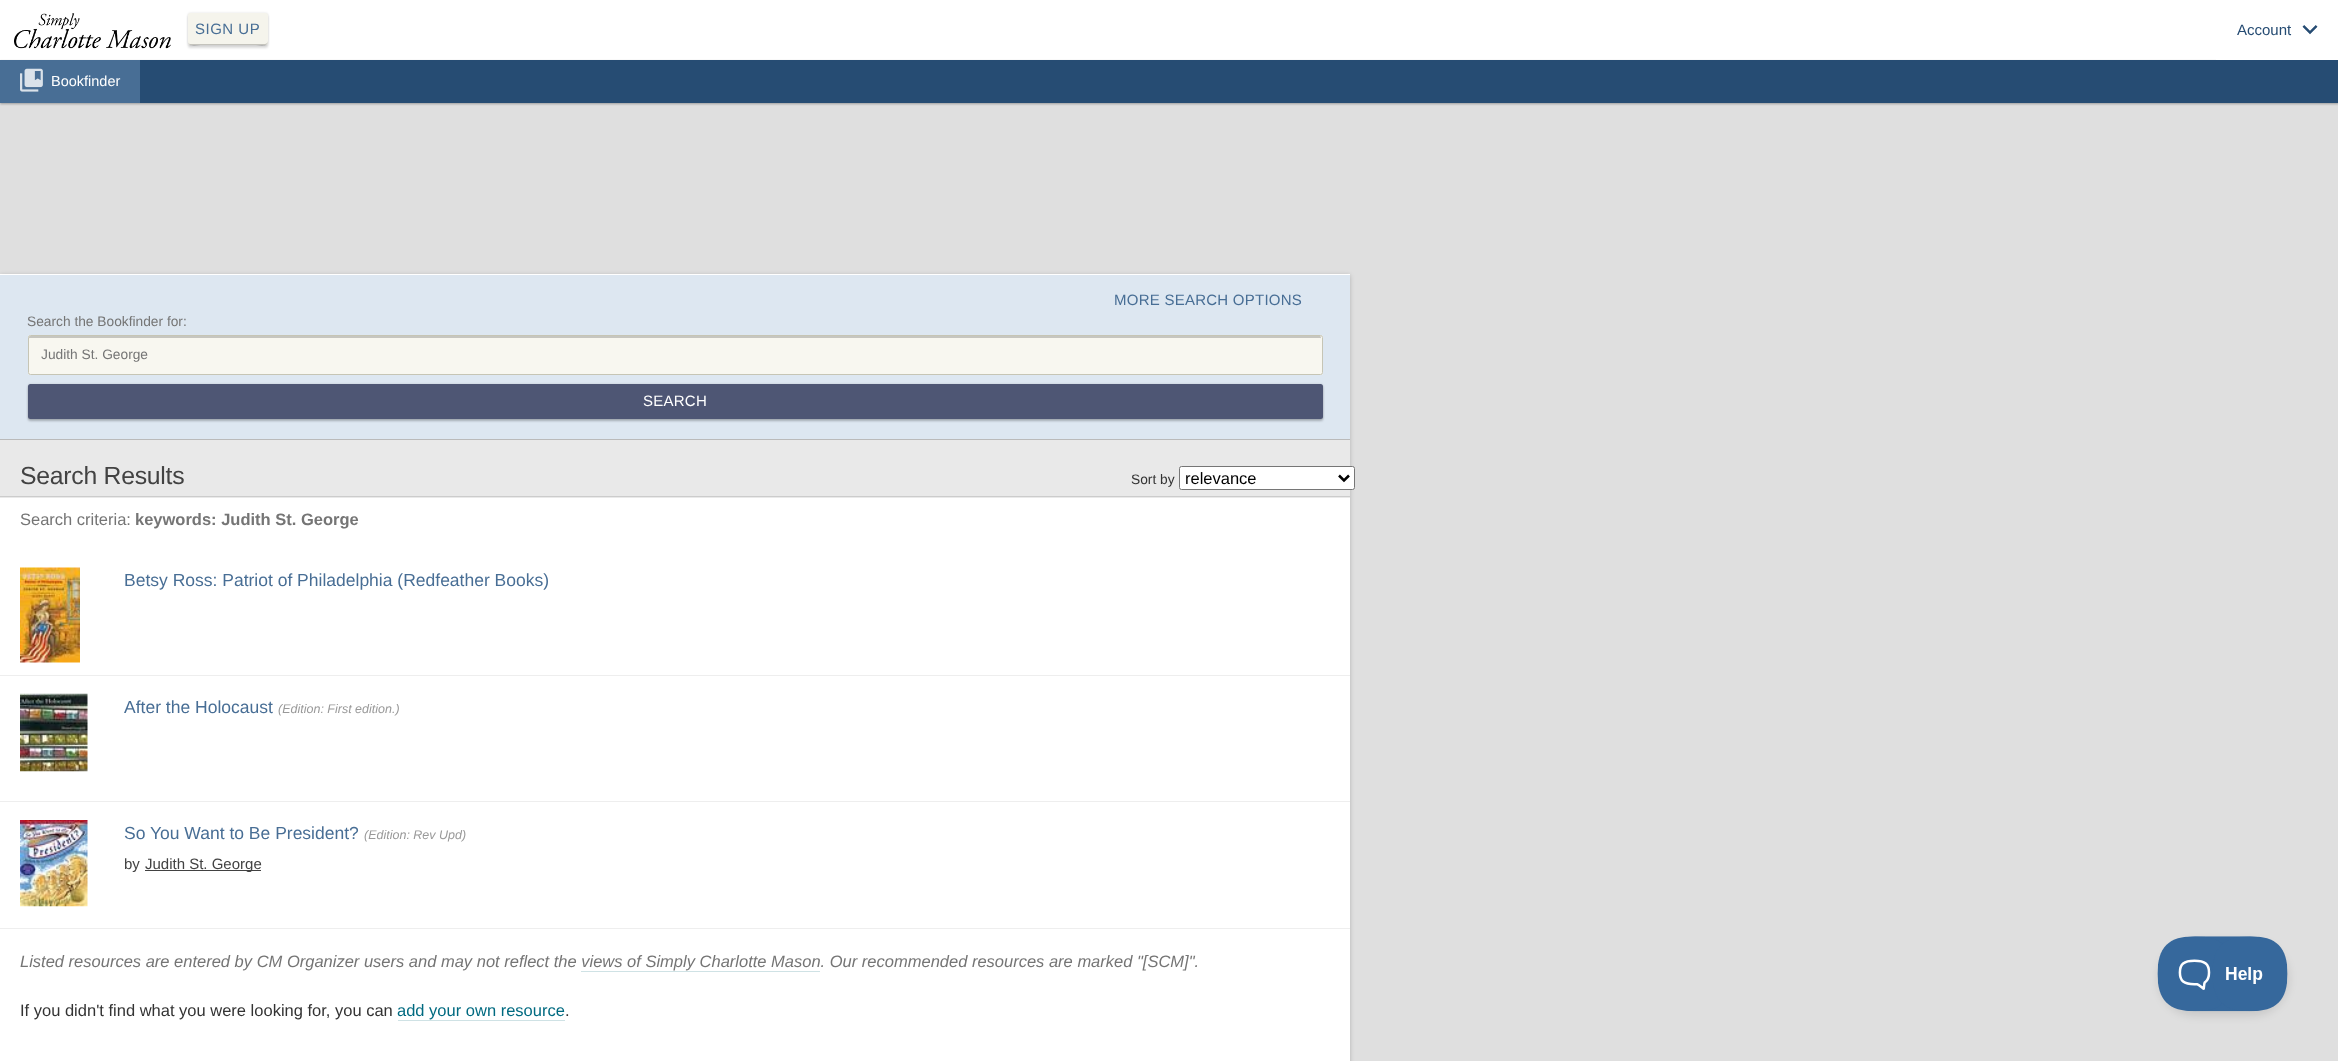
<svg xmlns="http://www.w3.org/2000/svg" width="2338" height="1061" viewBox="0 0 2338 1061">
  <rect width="100%" height="100%" fill="rgb(223,223,223)"/>
  <rect x="0" y="0" width="2216" height="60" fill="rgb(255,255,255)"/>
  <rect x="188" y="15" width="80" height="33" rx="2.5" fill="rgba(0,0,0,0.14)" filter="blur(1px)"/>
  <rect x="188" y="13" width="80" height="32" rx="2.5" fill="rgba(0,0,0,0.12)" filter="blur(1px)"/>
  <rect x="188" y="13" width="80" height="32" rx="2.5" fill="rgb(245,244,236)"/>
  <path d="M188 41C188 48 197 45 203 45H253C259 45 268 48 268 41C268 43 266 44 265 44H190C189 44 188 43 188 41Z" fill="rgba(0,0,0,0.2)"/>
  <text x="195" y="34" font-family="Liberation Sans" font-size="15" letter-spacing="0.5" fill="rgb(72,110,149)">SIGN UP</text>
  <rect x="0" y="61" width="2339" height="43" fill="rgba(0,0,0,0.3)" filter="blur(1px)"/>
  <rect x="2216" y="0" width="122" height="60" fill="rgb(255,255,255)"/>
  <text x="2237" y="35" font-family="Liberation Sans" font-size="15" fill="rgb(38,76,115)">Account</text>
  <image x="2302" y="25" width="16" height="10" href="pic1.png"/>
  <image x="14" y="13" width="157" height="36" href="pic2.png"/>
  <rect x="140" y="60" width="2198" height="43" fill="rgb(38,76,115)"/>
  <rect x="0" y="60" width="140" height="43" fill="rgb(72,110,149)"/>
  <image x="20" y="68" width="23" height="24" href="pic3.png"/>
  <text x="51" y="86" font-family="Liberation Sans" font-size="14.5" fill="rgb(255,255,255)">Bookfinder</text>
  <rect x="0" y="275" width="1350" height="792" fill="rgba(0,0,0,0.2)" filter="blur(2px)"/>
  <rect x="0" y="274" width="1350" height="787" fill="rgb(255,255,255)"/>
  <rect x="0" y="439" width="1350" height="1" fill="rgb(186,186,186)"/>
  <rect x="0" y="275" width="1350" height="164" fill="rgb(221,231,241)"/>
  <text x="1114" y="305" font-family="Liberation Sans" font-size="15" letter-spacing="0.25" fill="rgb(72,110,149)">MORE SEARCH OPTIONS</text>
  <text x="27" y="326" font-family="Liberation Sans" font-size="13.75" fill="rgb(117,117,117)">Search the Bookfinder for:</text>
  <rect x="28" y="335" width="1295" height="40" rx="2.5" fill="rgb(248,247,240)"/>
  <path d="M30 338H1320C1321 338 1321 338 1321 339C1321 338 1321 336 1320 336H30L29 337V339C29 338 29 338 30 338Z" fill="rgb(198,198,192)"/>
  <rect x="28.5" y="335.5" width="1294" height="39" rx="2" fill="none" stroke="rgb(198,197,181)"/>
  <text x="41" y="359" font-family="Liberation Sans" font-size="13.75" fill="rgb(117,117,117)">Judith St. George</text>
  <rect x="28" y="386" width="1295" height="35" rx="2.5" fill="rgba(0,0,0,0.24)" filter="blur(1px)"/>
  <rect x="28" y="384" width="1295" height="35" rx="2.5" fill="rgba(0,0,0,0.12)" filter="blur(1px)"/>
  <rect x="28" y="384" width="1295" height="35" rx="2.5" fill="rgb(78,86,116)"/>
  <text x="643" y="406" font-family="Liberation Sans" font-size="15" letter-spacing="0.25" fill="rgb(255,255,255)">SEARCH</text>
  <rect x="0" y="440" width="1350" height="58" fill="rgb(233,233,233)"/>
  <rect x="0" y="496" width="1350" height="1" fill="rgb(204,204,204)"/>
  <text x="20" y="484" font-family="Liberation Sans" font-size="24.75" letter-spacing="-0.25" fill="rgb(66,66,66)">Search Results</text>
  <text x="1131" y="484" font-family="Liberation Sans" font-size="13.75" fill="rgb(51,51,51)">Sort by</text>
  <rect x="1179.5" y="466.5" width="175" height="23" rx="2" fill="rgb(255,255,255)" stroke="rgb(118,118,118)"/>
  <path d="M1339 475.5L1344 480.5L1349 475.5" fill="none" stroke="rgb(0,0,0)" stroke-width="2.5"/>
  <text x="1185" y="484" font-family="Liberation Sans" font-size="16.5" fill="rgb(0,0,0)">relevance</text>
  <text x="20" y="525" font-family="Liberation Sans" font-size="16.5" fill="rgb(117,117,117)">Search criteria:</text>
  <text x="135" y="525" font-family="Liberation Sans" font-size="16.5" font-weight="bold" fill="rgb(117,117,117)">keywords: Judith St. George</text>
  <rect x="0" y="675" width="1350" height="1" fill="rgb(238,238,238)"/>
  <image x="20" y="567" width="60" height="96" href="pic4.png"/>
  <text x="124" y="586" font-family="Liberation Sans" font-size="17.5" fill="rgb(72,110,149)">Betsy Ross: Patriot of Philadelphia (Redfeather Books)</text>
  <rect x="0" y="801" width="1350" height="1" fill="rgb(238,238,238)"/>
  <image x="20" y="693" width="68" height="79" href="pic5.png"/>
  <text x="124" y="713" font-family="Liberation Sans" font-size="17.5" fill="rgb(72,110,149)">After the Holocaust</text>
  <text x="278" y="713" font-family="Liberation Sans" font-size="12.5" font-style="italic" fill="rgb(153,153,153)">(Edition: First edition.)</text>
  <rect x="0" y="928" width="1350" height="1" fill="rgb(238,238,238)"/>
  <image x="20" y="820" width="68" height="87" href="pic6.png"/>
  <text x="124" y="839" font-family="Liberation Sans" font-size="17.5" fill="rgb(72,110,149)">So You Want to Be President?</text>
  <text x="364" y="839" font-family="Liberation Sans" font-size="12.5" font-style="italic" fill="rgb(153,153,153)">(Edition: Rev Upd)</text>
  <text x="124" y="869" font-family="Liberation Sans" font-size="15" fill="rgb(66,66,66)">by</text>
  <rect x="145" y="870" width="116" height="1" fill="rgb(66,66,66)"/>
  <text x="145" y="869" font-family="Liberation Sans" font-size="15" fill="rgb(66,66,66)">Judith St. George</text>
  <text x="20" y="967" font-family="Liberation Sans" font-size="16.5" font-style="italic" fill="rgb(117,117,117)">Listed resources are entered by CM Organizer users and may not reflect the views of Simply Charlotte Mason. Our recommended resources are marked "[SCM]".</text>
  <rect x="581" y="971" width="239" height="1" fill="rgb(207,226,229)"/>
  <text x="20" y="1016" font-family="Liberation Sans" font-size="16.5" fill="rgb(51,51,51)">If you didn't find what you were looking for, you can</text>
  <text x="397" y="1016" font-family="Liberation Sans" font-size="16.5" fill="rgb(0,106,128)">add your own resource</text>
  <rect x="398" y="1020" width="167" height="1" fill="rgb(207,226,229)"/>
  <text x="565" y="1016" font-family="Liberation Sans" font-size="16.5" fill="rgb(51,51,51)">.</text>
  <rect x="2158" y="941" width="131" height="75" rx="37.5" fill="rgba(0,0,0,0.1)" filter="blur(4.5px)"/>
  <image x="2157" y="936" width="131" height="76" href="pic7.png"/>
</svg>
